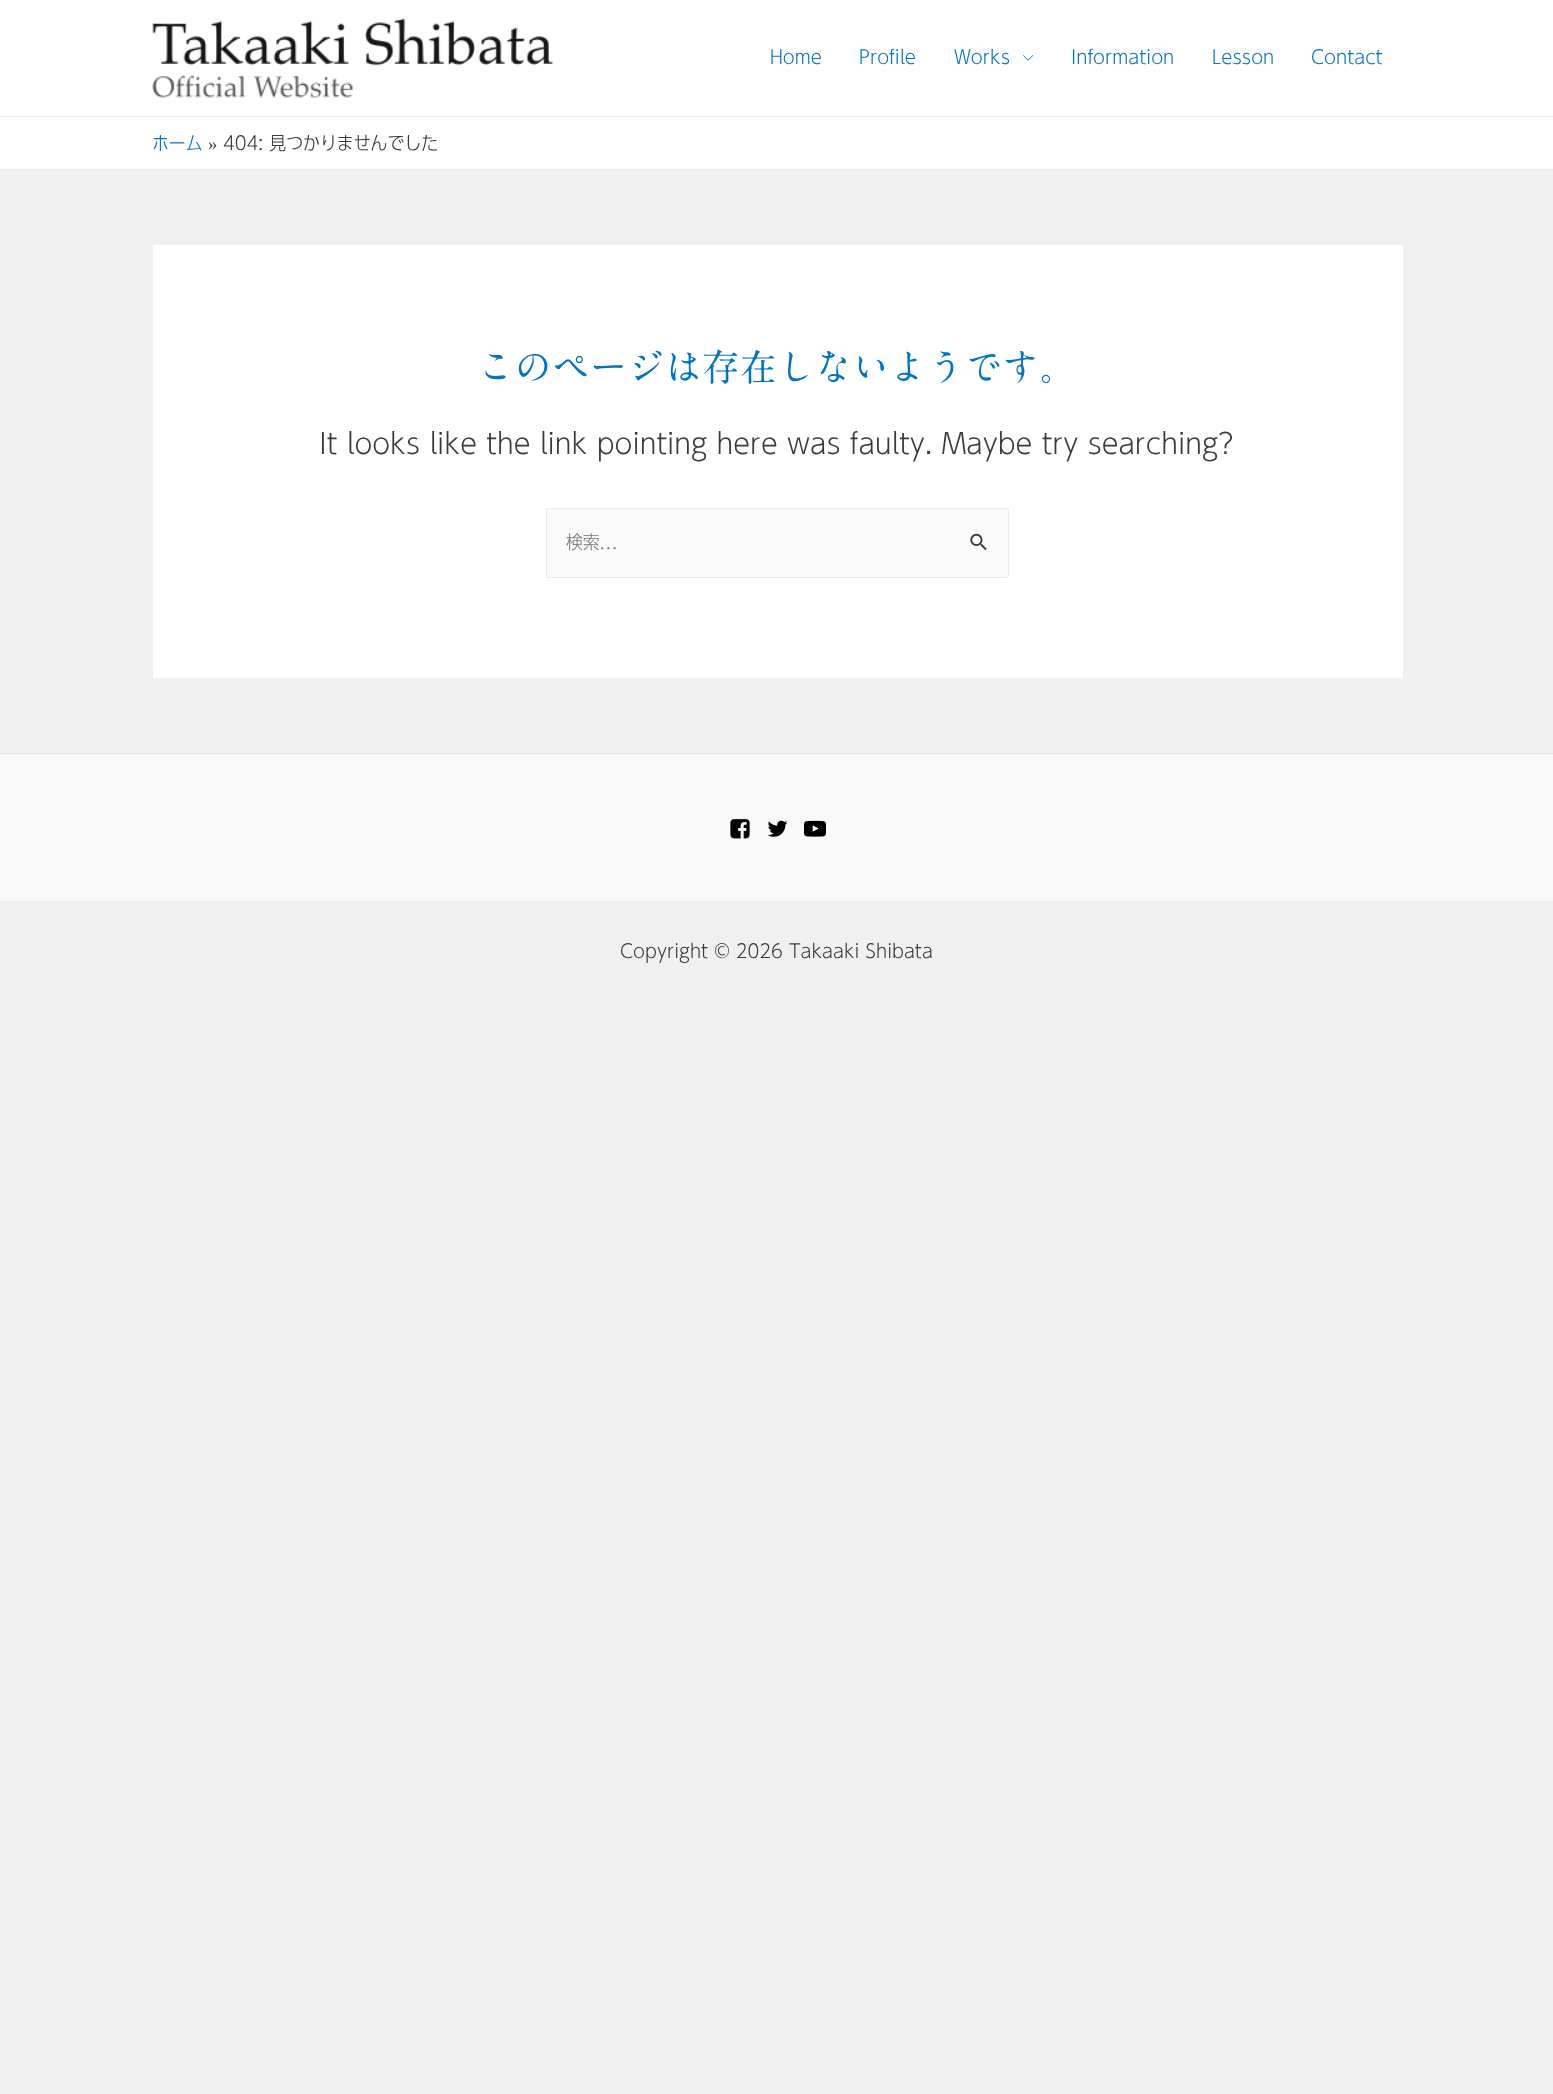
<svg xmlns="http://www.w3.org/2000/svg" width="1553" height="2094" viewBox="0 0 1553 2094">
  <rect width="100%" height="100%" fill="rgb(240,240,240)"/>
  <rect x="0" y="0" width="1553" height="169" fill="rgb(255,255,255)"/>
  <rect x="0" y="116" width="1553" height="1" fill="rgb(234,234,234)"/>
  <image x="152" y="18" width="401" height="80" href="pic1.png"/>
  <g font-family="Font" font-size="18.75" font-weight="300" fill="rgb(2,116,190)">
    <text x="770" y="64">Home</text>
    <text x="859" y="64">Profile</text>
    <text x="954" y="64">Works</text>
  </g>
  <image x="1023" y="55" width="11" height="6" href="pic2.png"/>
  <g font-family="Font" font-size="18.75" font-weight="300" fill="rgb(2,116,190)">
    <text x="1071" y="64">Information</text>
    <text x="1212" y="64">Lesson</text>
    <text x="1311" y="64">Contact</text>
  </g>
  <rect x="0" y="169" width="1553" height="1" fill="rgb(234,234,234)"/>
  <text x="152" y="150" font-family="Font" font-size="18.75" font-weight="300" fill="rgb(2,116,190)">ホーム</text>
  <text x="208" y="150" font-family="Liberation Serif" font-size="18.75" fill="rgb(58,58,58)">»</text>
  <text x="223" y="150" font-family="Font" font-size="18.75" font-weight="300" fill="rgb(58,58,58)">404: 見つかりませんでした</text>
  <rect x="153" y="245" width="1250" height="433" fill="rgb(255,255,255)"/>
  <text x="477" y="381" font-family="Font" font-size="37.5" fill="rgb(2,116,190)">このページは存在しないようです。</text>
  <text x="319" y="454" font-family="Font" font-size="28.1" font-weight="300" fill="rgb(58,58,58)">It looks like the link pointing here was faulty. Maybe try searching?</text>
  <rect x="546.5" y="508.5" width="462" height="69" rx="2" fill="rgb(250,250,250)" stroke="rgb(234,234,234)"/>
  <text x="566" y="549" font-family="Font" font-size="18.75" font-weight="300" fill="rgb(117,117,117)">検索</text>
  <text x="599" y="549" font-family="Liberation Serif" font-size="18.75" fill="rgb(117,117,117)">…</text>
  <image x="970" y="533" width="17" height="18" href="pic3.png"/>
  <rect x="0" y="754" width="1553" height="147" fill="rgb(249,249,249)"/>
  <rect x="0" y="753" width="1553" height="1" fill="rgb(230,230,230)"/>
  <image x="730" y="819" width="20" height="20" href="pic4.png"/>
  <image x="767" y="820" width="21" height="17" href="pic5.png"/>
  <image x="804" y="820" width="22" height="17" href="pic6.png"/>
  <text x="620" y="958" font-family="Font" font-size="18.75" font-weight="300" fill="rgb(58,58,58)">Copyright © 2026 Takaaki Shibata</text>
</svg>
